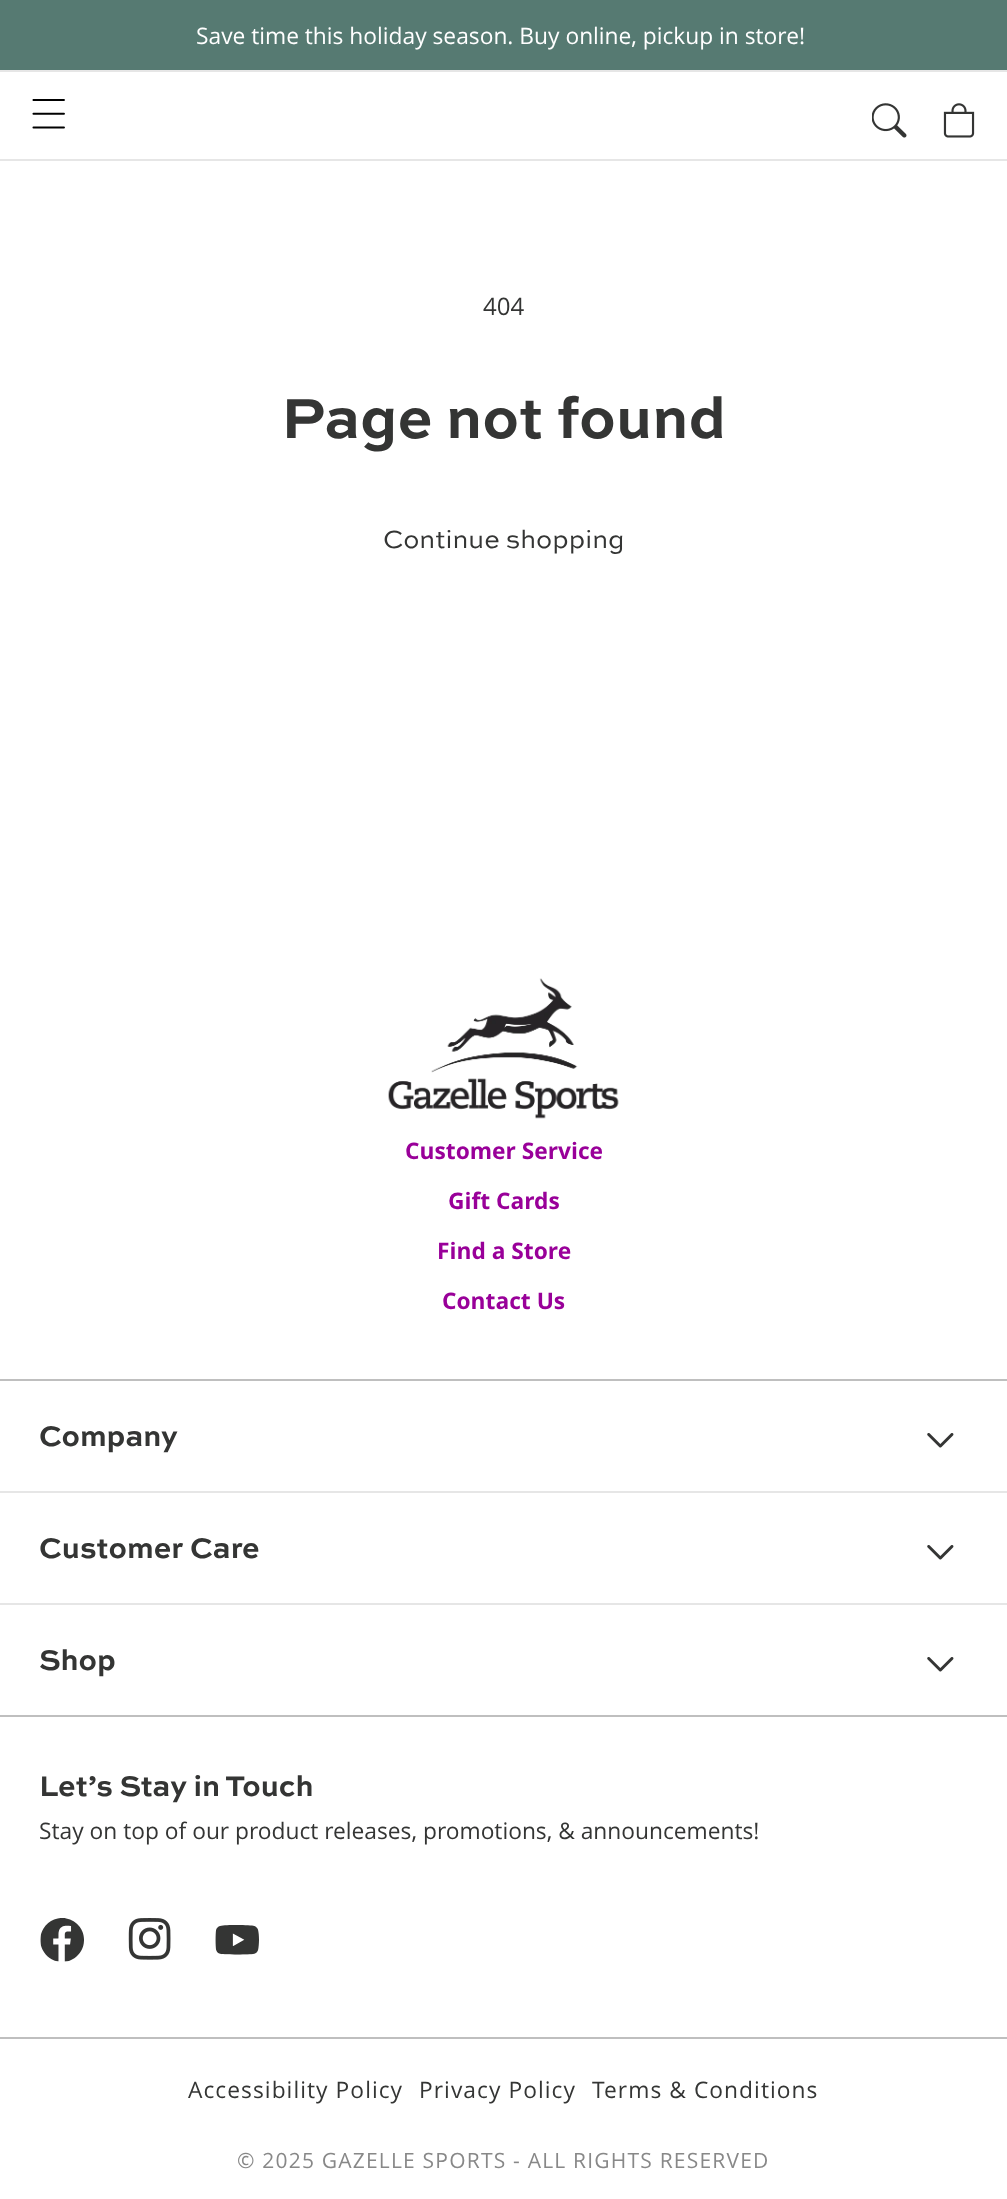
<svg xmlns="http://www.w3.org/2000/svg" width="1007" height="2199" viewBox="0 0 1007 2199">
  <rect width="100%" height="100%" fill="rgb(255,255,255)"/>
  <rect x="0" y="0" width="1007" height="70" fill="rgb(86,122,114)"/>
  <text x="196" y="44" font-family="Open Sans" font-size="22.75" fill="rgb(255,255,255)">Save time this holiday season. Buy online, pickup in store!</text>
  <rect x="0" y="70" width="1007" height="2" fill="rgb(230,230,230)"/>
  <rect x="0" y="159" width="1007" height="2" fill="rgb(230,230,230)"/>
  <image x="32" y="99" width="33" height="30" href="pic1.png"/>
  <image x="872" y="103" width="35" height="35" href="pic2.png"/>
  <image x="943" y="103" width="32" height="35" href="pic3.png"/>
  <text x="483" y="315" font-family="Open Sans" font-size="24" fill="rgb(52,53,52)">404</text>
  <text x="281" y="438" font-family="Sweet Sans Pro" font-size="59.5" font-weight="bold" fill="rgb(52,53,52)">Page not found</text>
  <text x="383" y="548" font-family="Sweet Sans Pro" font-size="26.25" fill="rgb(52,53,52)">Continue shopping</text>
  <image x="388" y="978" width="231" height="141" href="pic4.png"/>
  <g font-family="Open Sans" font-size="22.75" font-weight="bold" fill="rgb(153,0,153)">
    <text x="405" y="1159">Customer Service</text>
    <text x="448" y="1209">Gift Cards</text>
    <text x="437" y="1259">Find a Store</text>
    <text x="442" y="1309">Contact Us</text>
  </g>
  <rect x="0" y="1379" width="1007" height="2" fill="rgb(191,191,191)"/>
  <text x="39" y="1446" font-family="Sweet Sans Pro" font-size="29.75" font-weight="bold" fill="rgb(52,53,52)">Company</text>
  <image x="927" y="1433" width="27" height="15" href="pic5.png"/>
  <rect x="0" y="1491" width="1007" height="2" fill="rgb(230,230,230)"/>
  <text x="39" y="1558" font-family="Sweet Sans Pro" font-size="29.75" font-weight="bold" fill="rgb(52,53,52)">Customer Care</text>
  <image x="927" y="1545" width="27" height="15" href="pic5.png"/>
  <rect x="0" y="1603" width="1007" height="2" fill="rgb(230,230,230)"/>
  <rect x="0" y="1715" width="1007" height="2" fill="rgb(191,191,191)"/>
  <text x="39" y="1670" font-family="Sweet Sans Pro" font-size="29.75" font-weight="bold" fill="rgb(52,53,52)">Shop</text>
  <image x="927" y="1657" width="27" height="15" href="pic5.png"/>
  <text x="39" y="1796" font-family="Sweet Sans Pro" font-size="29.75" font-weight="bold" fill="rgb(52,53,52)">Let’s Stay in Touch</text>
  <text x="39" y="1839" font-family="Open Sans" font-size="22.75" fill="rgb(52,53,52)">Stay on top of our product releases, promotions, &amp; announcements!</text>
  <image x="40" y="1918" width="44" height="44" href="pic6.png"/>
  <image x="128" y="1918" width="43" height="42" href="pic7.png"/>
  <image x="215" y="1925" width="44" height="30" href="pic8.png"/>
  <rect x="0" y="2037" width="1007" height="2" fill="rgb(191,191,191)"/>
  <g font-family="Open Sans" font-size="22.75" letter-spacing="1.05" fill="rgb(52,53,52)">
    <text x="188" y="2098">Accessibility Policy</text>
    <text x="419" y="2098">Privacy Policy</text>
    <text x="592" y="2098">Terms &amp; Conditions</text>
  </g>
  <text x="237" y="2168" font-family="Open Sans" font-size="21" letter-spacing="1.2" fill="rgb(136,136,136)">© 2025 GAZELLE SPORTS - ALL RIGHTS RESERVED</text>
</svg>
